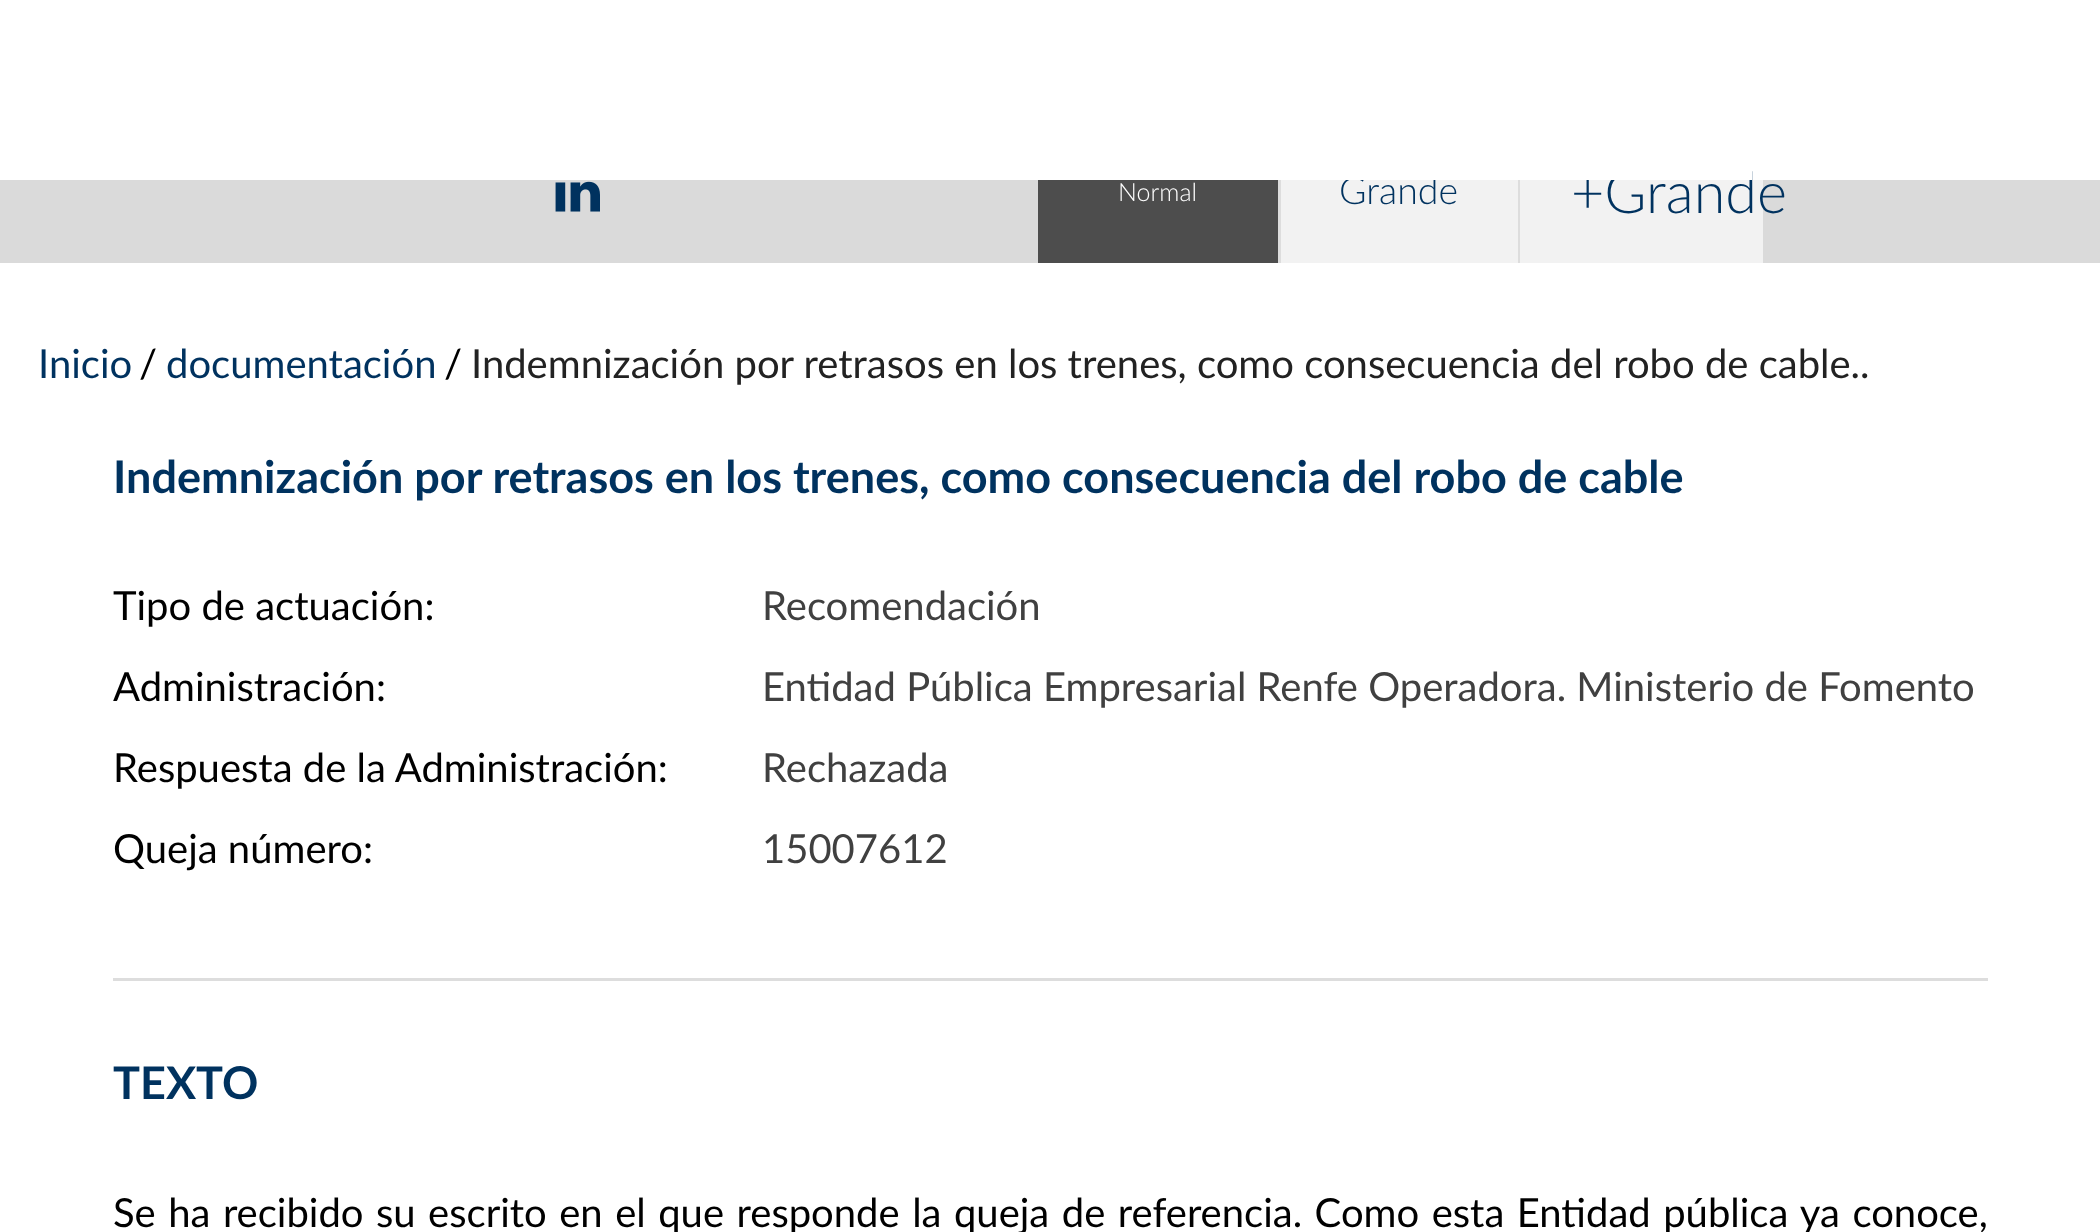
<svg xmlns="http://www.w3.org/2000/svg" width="2100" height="1232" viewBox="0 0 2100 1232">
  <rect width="100%" height="100%" fill="rgb(255,255,255)"/>
  <rect x="0" y="180" width="2100" height="83" fill="rgb(218,218,218)"/>
  <image x="555" y="181" width="45" height="31" href="pic1.png"/>
  <rect x="1281" y="180" width="237" height="83" fill="rgb(242,242,242)"/>
  <rect x="1038" y="180" width="240" height="83" fill="rgb(77,77,77)"/>
  <rect x="1278" y="180" width="3" height="83" fill="rgb(221,221,221)"/>
  <text x="1118" y="201" font-family="Lato" font-size="25" font-weight="300" fill="rgb(255,255,255)">Normal</text>
  <rect x="1518" y="180" width="2" height="83" fill="rgb(221,221,221)"/>
  <text x="1339" y="204" font-family="Lato" font-size="37.5" font-weight="300" fill="rgb(0,50,95)">Grande</text>
  <rect x="1520" y="180" width="243" height="83" fill="rgb(242,242,242)"/>
  <text x="1571" y="213" font-family="Lato" font-size="57.5" font-weight="300" fill="rgb(0,50,95)">+Grande</text>
  <text x="38" y="378" font-family="Lato" font-size="40" fill="rgb(0,50,95)">Inicio</text>
  <text x="139" y="378" font-family="Lato" font-size="40" fill="rgb(0,0,0)">/</text>
  <text x="166" y="378" font-family="Lato" font-size="40" fill="rgb(0,50,95)">documentación</text>
  <text x="444" y="378" font-family="Lato" font-size="40" fill="rgb(0,0,0)">/</text>
  <text x="471" y="378" font-family="Lato" font-size="40" fill="rgb(34,34,34)">Indemnización por retrasos en los trenes, como consecuencia del robo de cable..</text>
  <text x="113" y="493" font-family="Lato" font-size="45" font-weight="bold" fill="rgb(0,50,95)">Indemnización por retrasos en los trenes, como consecuencia del robo de cable</text>
  <text x="113" y="620" font-family="Lato" font-size="40" fill="rgb(0,0,0)">Tipo de actuación:</text>
  <text x="762" y="620" font-family="Lato" font-size="40" fill="rgb(64,64,64)">Recomendación</text>
  <text x="113" y="701" font-family="Lato" font-size="40" fill="rgb(0,0,0)">Administración:</text>
  <text x="762" y="701" font-family="Lato" font-size="40" fill="rgb(64,64,64)">Entidad Pública Empresarial Renfe Operadora. Ministerio de Fomento</text>
  <text x="113" y="782" font-family="Lato" font-size="40" fill="rgb(0,0,0)">Respuesta de la Administración:</text>
  <text x="762" y="782" font-family="Lato" font-size="40" fill="rgb(64,64,64)">Rechazada</text>
  <text x="113" y="863" font-family="Lato" font-size="40" fill="rgb(0,0,0)">Queja número:</text>
  <text x="762" y="863" font-family="Lato" font-size="40" fill="rgb(64,64,64)">15007612</text>
  <rect x="113" y="978" width="1875" height="3" fill="rgb(221,221,221)"/>
  <text x="113" y="1099" font-family="Lato" font-size="45" font-weight="bold" fill="rgb(0,50,95)">TEXTO</text>
  <text x="113" y="1227" word-spacing="2.25" font-family="Lato" font-size="40" fill="rgb(0,0,0)">Se ha recibido su escrito en el que responde la queja de referencia. Como esta Entidad pública ya conoce,</text>
  <rect x="1346" y="171" width="406" height="9" fill="rgb(255,255,255)"/>
</svg>
